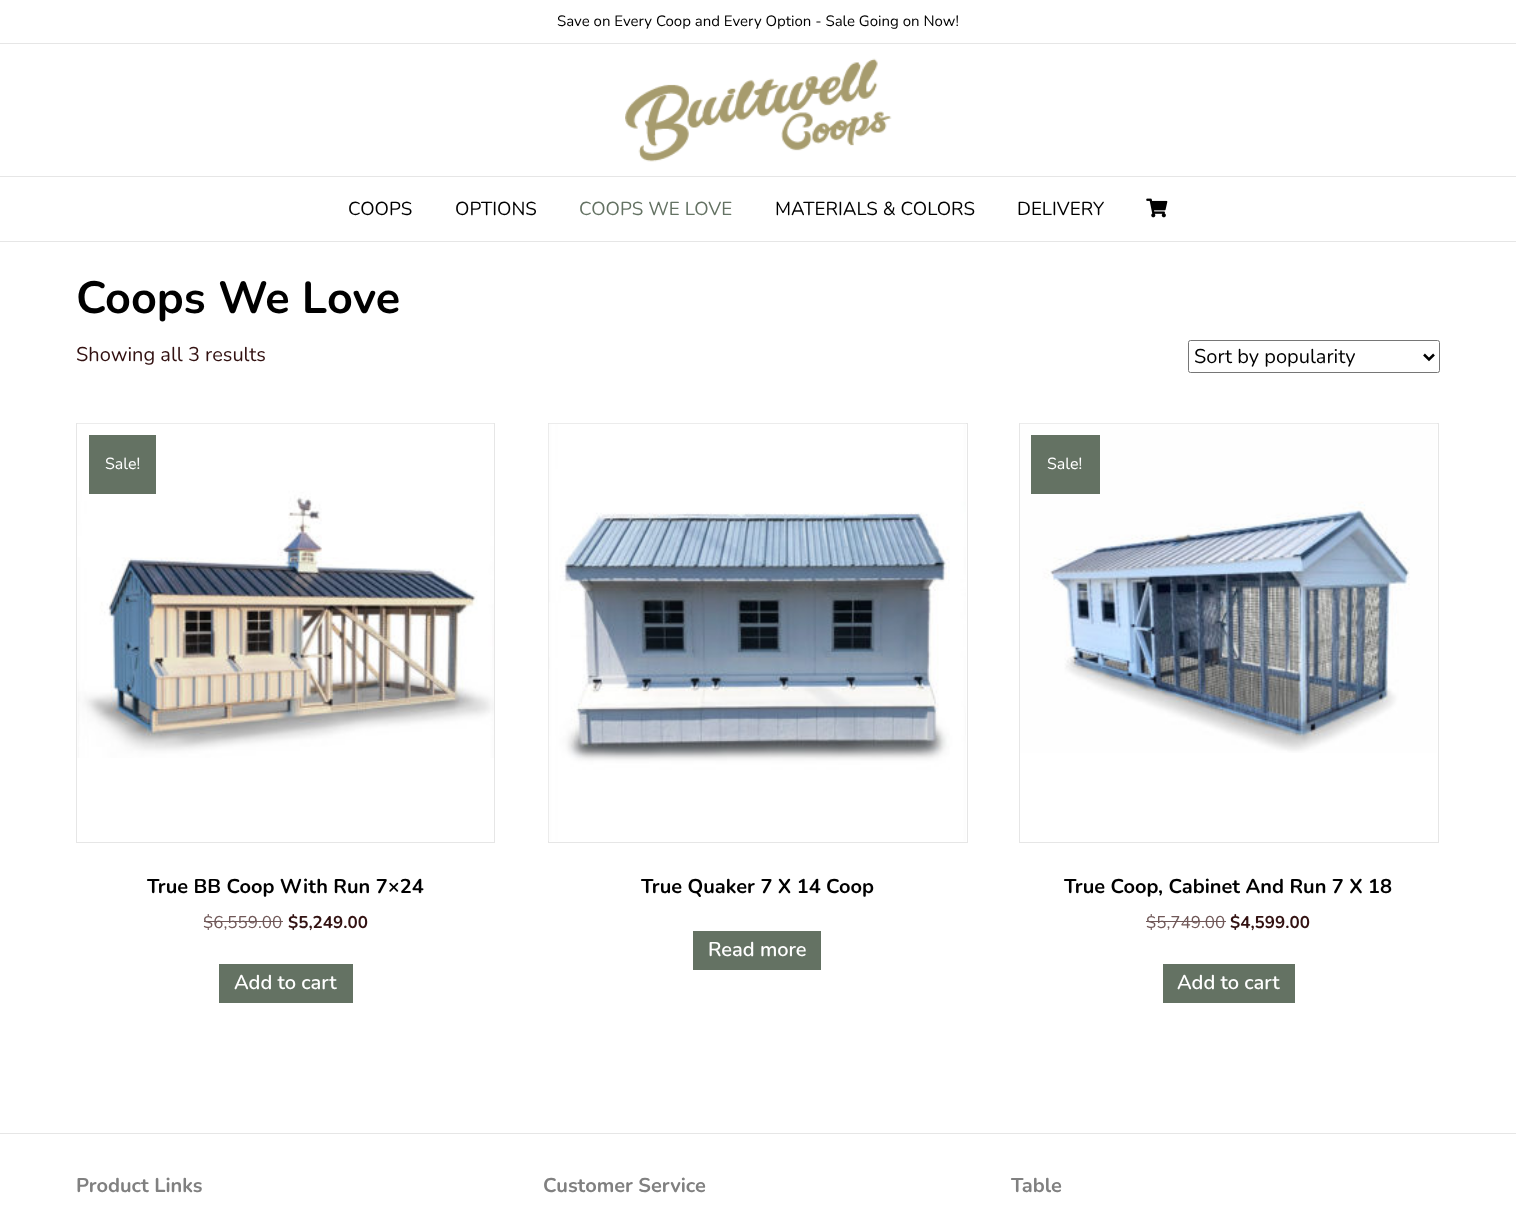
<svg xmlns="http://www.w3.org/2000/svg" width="1516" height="1232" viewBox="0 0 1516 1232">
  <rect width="100%" height="100%" fill="rgb(255,255,255)"/>
  <rect x="0" y="43" width="1516" height="1" fill="rgb(230,230,230)"/>
  <text x="557" y="26" font-family="Nunito" font-size="15" fill="rgb(0,0,0)">Save on Every Coop and Every Option - Sale Going on Now!</text>
  <image x="625" y="58" width="267" height="104" href="pic1.png"/>
  <rect x="0" y="176" width="1516" height="1" fill="rgb(230,230,230)"/>
  <rect x="0" y="241" width="1516" height="1" fill="rgb(230,230,230)"/>
  <g font-family="Nunito" font-size="18.75" fill="rgb(0,0,0)">
    <text x="348" y="215">COOPS</text>
    <text x="455" y="215">OPTIONS</text>
  </g>
  <text x="579" y="215" font-family="Nunito" font-size="18.75" fill="rgb(100,114,99)">COOPS WE LOVE</text>
  <g font-family="Nunito" font-size="18.75" fill="rgb(0,0,0)">
    <text x="775" y="215">MATERIALS &amp; COLORS</text>
    <text x="1017" y="215">DELIVERY</text>
  </g>
  <image x="1146" y="198" width="22" height="20" href="pic2.png"/>
  <text x="76" y="313" font-family="Nunito" font-size="45" font-weight="bold" fill="rgb(0,0,0)">Coops We Love</text>
  <text x="76" y="361" font-family="Nunito" font-size="20" fill="rgb(50,17,17)">Showing all 3 results</text>
  <rect x="1188.5" y="340.5" width="251" height="32" rx="2" fill="none" stroke="rgb(118,118,118)"/>
  <path d="M1424 354.5L1429 359.5L1434 354.5" fill="none" stroke="rgb(0,0,0)" stroke-width="2.5"/>
  <text x="1194" y="363" font-family="Nunito" font-size="20" fill="rgb(0,0,0)">Sort by popularity</text>
  <rect x="76.5" y="423.5" width="418" height="419" fill="none" stroke="rgb(230,230,230)"/>
  <image x="77" y="423" width="417" height="335" href="pic3.png"/>
  <rect x="89" y="435" width="67" height="59" fill="rgb(100,114,99)"/>
  <text x="105" y="469" font-family="Nunito" font-size="16" fill="rgb(255,255,255)">Sale!</text>
  <text x="147" y="893" font-family="Nunito" font-size="20" font-weight="bold" fill="rgb(0,0,0)">True BB Coop With Run 7×24</text>
  <text x="203" y="928" font-family="Nunito" font-size="17" fill="rgb(112,88,88)">$6,559.00</text>
  <rect x="204" y="921" width="79" height="1" fill="rgb(112,88,88)"/>
  <text x="288" y="928" font-family="Nunito" font-size="17" font-weight="bold" fill="rgb(50,17,17)">$5,249.00</text>
  <rect x="219" y="964" width="134" height="39" fill="rgb(100,114,99)"/>
  <text x="234" y="989" font-family="Nunito" font-size="20" font-weight="600" fill="rgb(255,255,255)">Add to cart</text>
  <rect x="548.5" y="423.5" width="419" height="419" fill="none" stroke="rgb(230,230,230)"/>
  <image x="548" y="423" width="418" height="418" href="pic4.png"/>
  <text x="641" y="893" font-family="Nunito" font-size="20" font-weight="bold" fill="rgb(0,0,0)">True Quaker 7 X 14 Coop</text>
  <rect x="693" y="931" width="128" height="39" fill="rgb(100,114,99)"/>
  <text x="708" y="956" font-family="Nunito" font-size="20" font-weight="600" fill="rgb(255,255,255)">Read more</text>
  <rect x="1019.5" y="423.5" width="419" height="419" fill="none" stroke="rgb(230,230,230)"/>
  <image x="1020" y="423" width="417" height="330" href="pic5.png"/>
  <rect x="1031" y="435" width="69" height="59" fill="rgb(100,114,99)"/>
  <text x="1047" y="469" font-family="Nunito" font-size="16" fill="rgb(255,255,255)">Sale!</text>
  <text x="1064" y="893" font-family="Nunito" font-size="20" font-weight="bold" fill="rgb(0,0,0)">True Coop, Cabinet And Run 7 X 18</text>
  <text x="1146" y="928" font-family="Nunito" font-size="17" fill="rgb(112,88,88)">$5,749.00</text>
  <rect x="1146" y="921" width="80" height="1" fill="rgb(112,88,88)"/>
  <text x="1230" y="928" font-family="Nunito" font-size="17" font-weight="bold" fill="rgb(50,17,17)">$4,599.00</text>
  <rect x="1163" y="964" width="132" height="39" fill="rgb(100,114,99)"/>
  <text x="1177" y="989" font-family="Nunito" font-size="20" font-weight="600" fill="rgb(255,255,255)">Add to cart</text>
  <rect x="0" y="1133" width="1516" height="1" fill="rgb(230,230,230)"/>
  <g font-family="Nunito" font-size="20" font-weight="bold" fill="rgb(128,128,128)">
    <text x="76" y="1192">Product Links</text>
    <text x="543" y="1192">Customer Service</text>
    <text x="1011" y="1192">Table</text>
  </g>
</svg>
